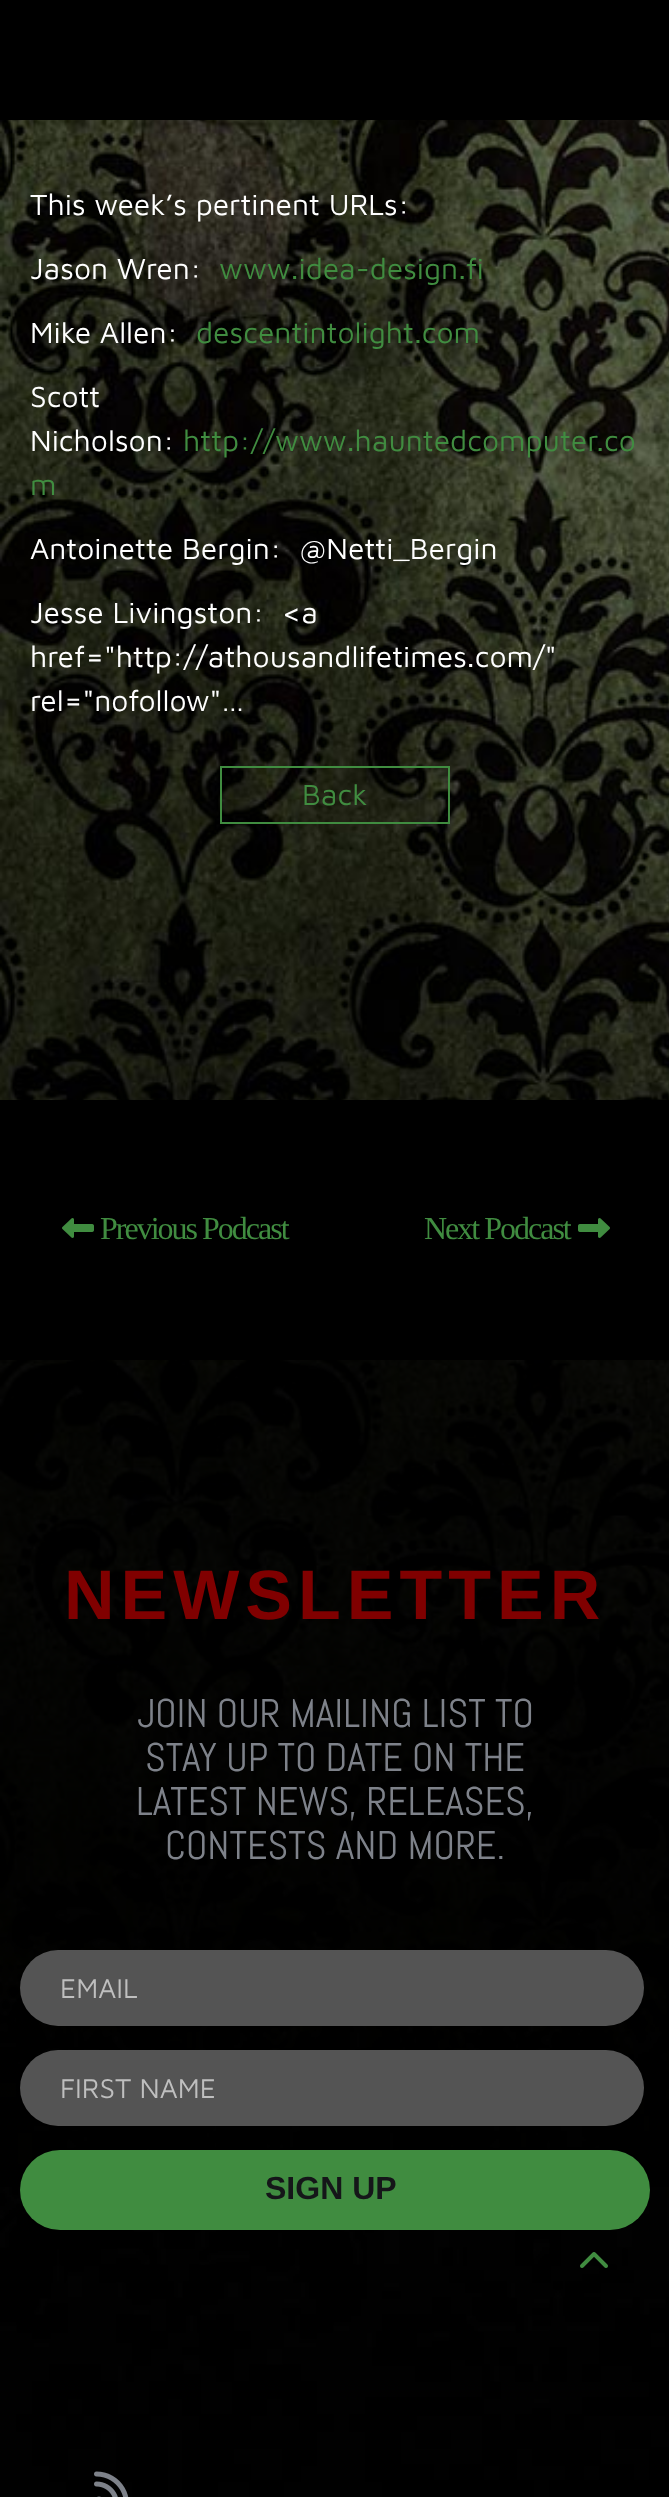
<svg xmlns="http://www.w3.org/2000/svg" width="669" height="2497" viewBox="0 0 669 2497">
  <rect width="100%" height="100%" fill="rgb(255,255,255)"/>
  <image x="0" y="120" width="669" height="2377" href="pic1.png"/>
  <rect x="0" y="0" width="669" height="120" fill="rgb(0,0,0)"/>
  <g font-family="Maven Pro" font-size="30" fill="rgb(255,255,255)">
    <text x="30" y="215">This week’s pertinent URLs:</text>
    <text x="30" y="279">Jason Wren:</text>
  </g>
  <text x="219" y="279" font-family="Maven Pro" font-size="30" fill="rgb(64,140,64)">www.idea-design.fi</text>
  <text x="30" y="343" font-family="Maven Pro" font-size="30" fill="rgb(255,255,255)">Mike Allen:</text>
  <text x="196" y="343" font-family="Maven Pro" font-size="30" fill="rgb(64,140,64)">descentintolight.com</text>
  <g font-family="Maven Pro" font-size="30" fill="rgb(255,255,255)">
    <text>
      <tspan x="30" y="407">Scott</tspan>
      <tspan x="30" y="451">Nicholson:</tspan>
    </text>
  </g>
  <g font-family="Maven Pro" font-size="30" fill="rgb(64,140,64)">
    <text x="183" y="451">http://www.hauntedcomputer.co</text>
    <text x="30" y="495">m</text>
  </g>
  <g font-family="Maven Pro" font-size="30" fill="rgb(255,255,255)">
    <text x="30" y="559" xml:space="preserve">Antoinette Bergin:  @Netti_Bergin</text>
    <text xml:space="preserve"><tspan x="30" y="623">Jesse Livingston:  &lt;a</tspan><tspan x="30" y="667">href="http://athousandlifetimes.com/"</tspan><tspan x="30" y="711">rel="nofollow"…</tspan></text>
  </g>
  <rect x="221" y="767" width="228" height="56" fill="none" stroke="rgb(64,140,64)" stroke-width="2"/>
  <text x="302" y="805" font-family="Maven Pro" font-size="30" fill="rgb(64,140,64)">Back</text>
  <rect x="0" y="1100" width="669" height="260" fill="rgb(0,0,0)"/>
  <image x="62" y="1218" width="32" height="20" href="pic2.png"/>
  <g font-family="Liberation Serif" font-size="32" letter-spacing="-2" fill="rgb(64,140,64)">
    <text x="100" y="1239">Previous Podcast</text>
    <text x="424" y="1239">Next Podcast</text>
  </g>
  <image x="578" y="1218" width="32" height="20" href="pic3.png"/>
  <rect x="0" y="1360" width="669" height="827" fill="rgba(0,0,0,0.65)"/>
  <text x="64" y="1619" font-family="Liberation Sans" font-size="70" font-weight="bold" letter-spacing="6" fill="rgb(128,0,0)">NEWSLETTER</text>
  <g font-family="Abel" font-size="40" fill="rgb(126,130,138)">
    <text x="137" y="1727">JOIN OUR MAILING LIST TO</text>
    <text x="145" y="1771">STAY UP TO DATE ON THE</text>
    <text x="136" y="1815">LATEST NEWS, RELEASES,</text>
    <text x="165" y="1859">CONTESTS AND MORE.</text>
  </g>
  <rect x="20" y="1950" width="624" height="76" rx="38" fill="rgb(84,84,84)"/>
  <text x="60" y="1998" font-family="Maven Pro" font-size="28" fill="rgb(191,191,191)">EMAIL</text>
  <rect x="20" y="2050" width="624" height="76" rx="38" fill="rgb(84,84,84)"/>
  <text x="60" y="2098" font-family="Maven Pro" font-size="28" fill="rgb(191,191,191)">FIRST NAME</text>
  <rect x="20" y="2150" width="630" height="80" rx="40" fill="rgb(64,140,64)"/>
  <text x="265" y="2199" font-family="Liberation Sans" font-size="32" font-weight="bold" fill="rgb(21,22,25)">SIGN UP</text>
  <image x="94" y="2471" width="35" height="26" href="pic4.png"/>
  <image x="580" y="2252" width="28" height="16" href="pic5.png"/>
</svg>
